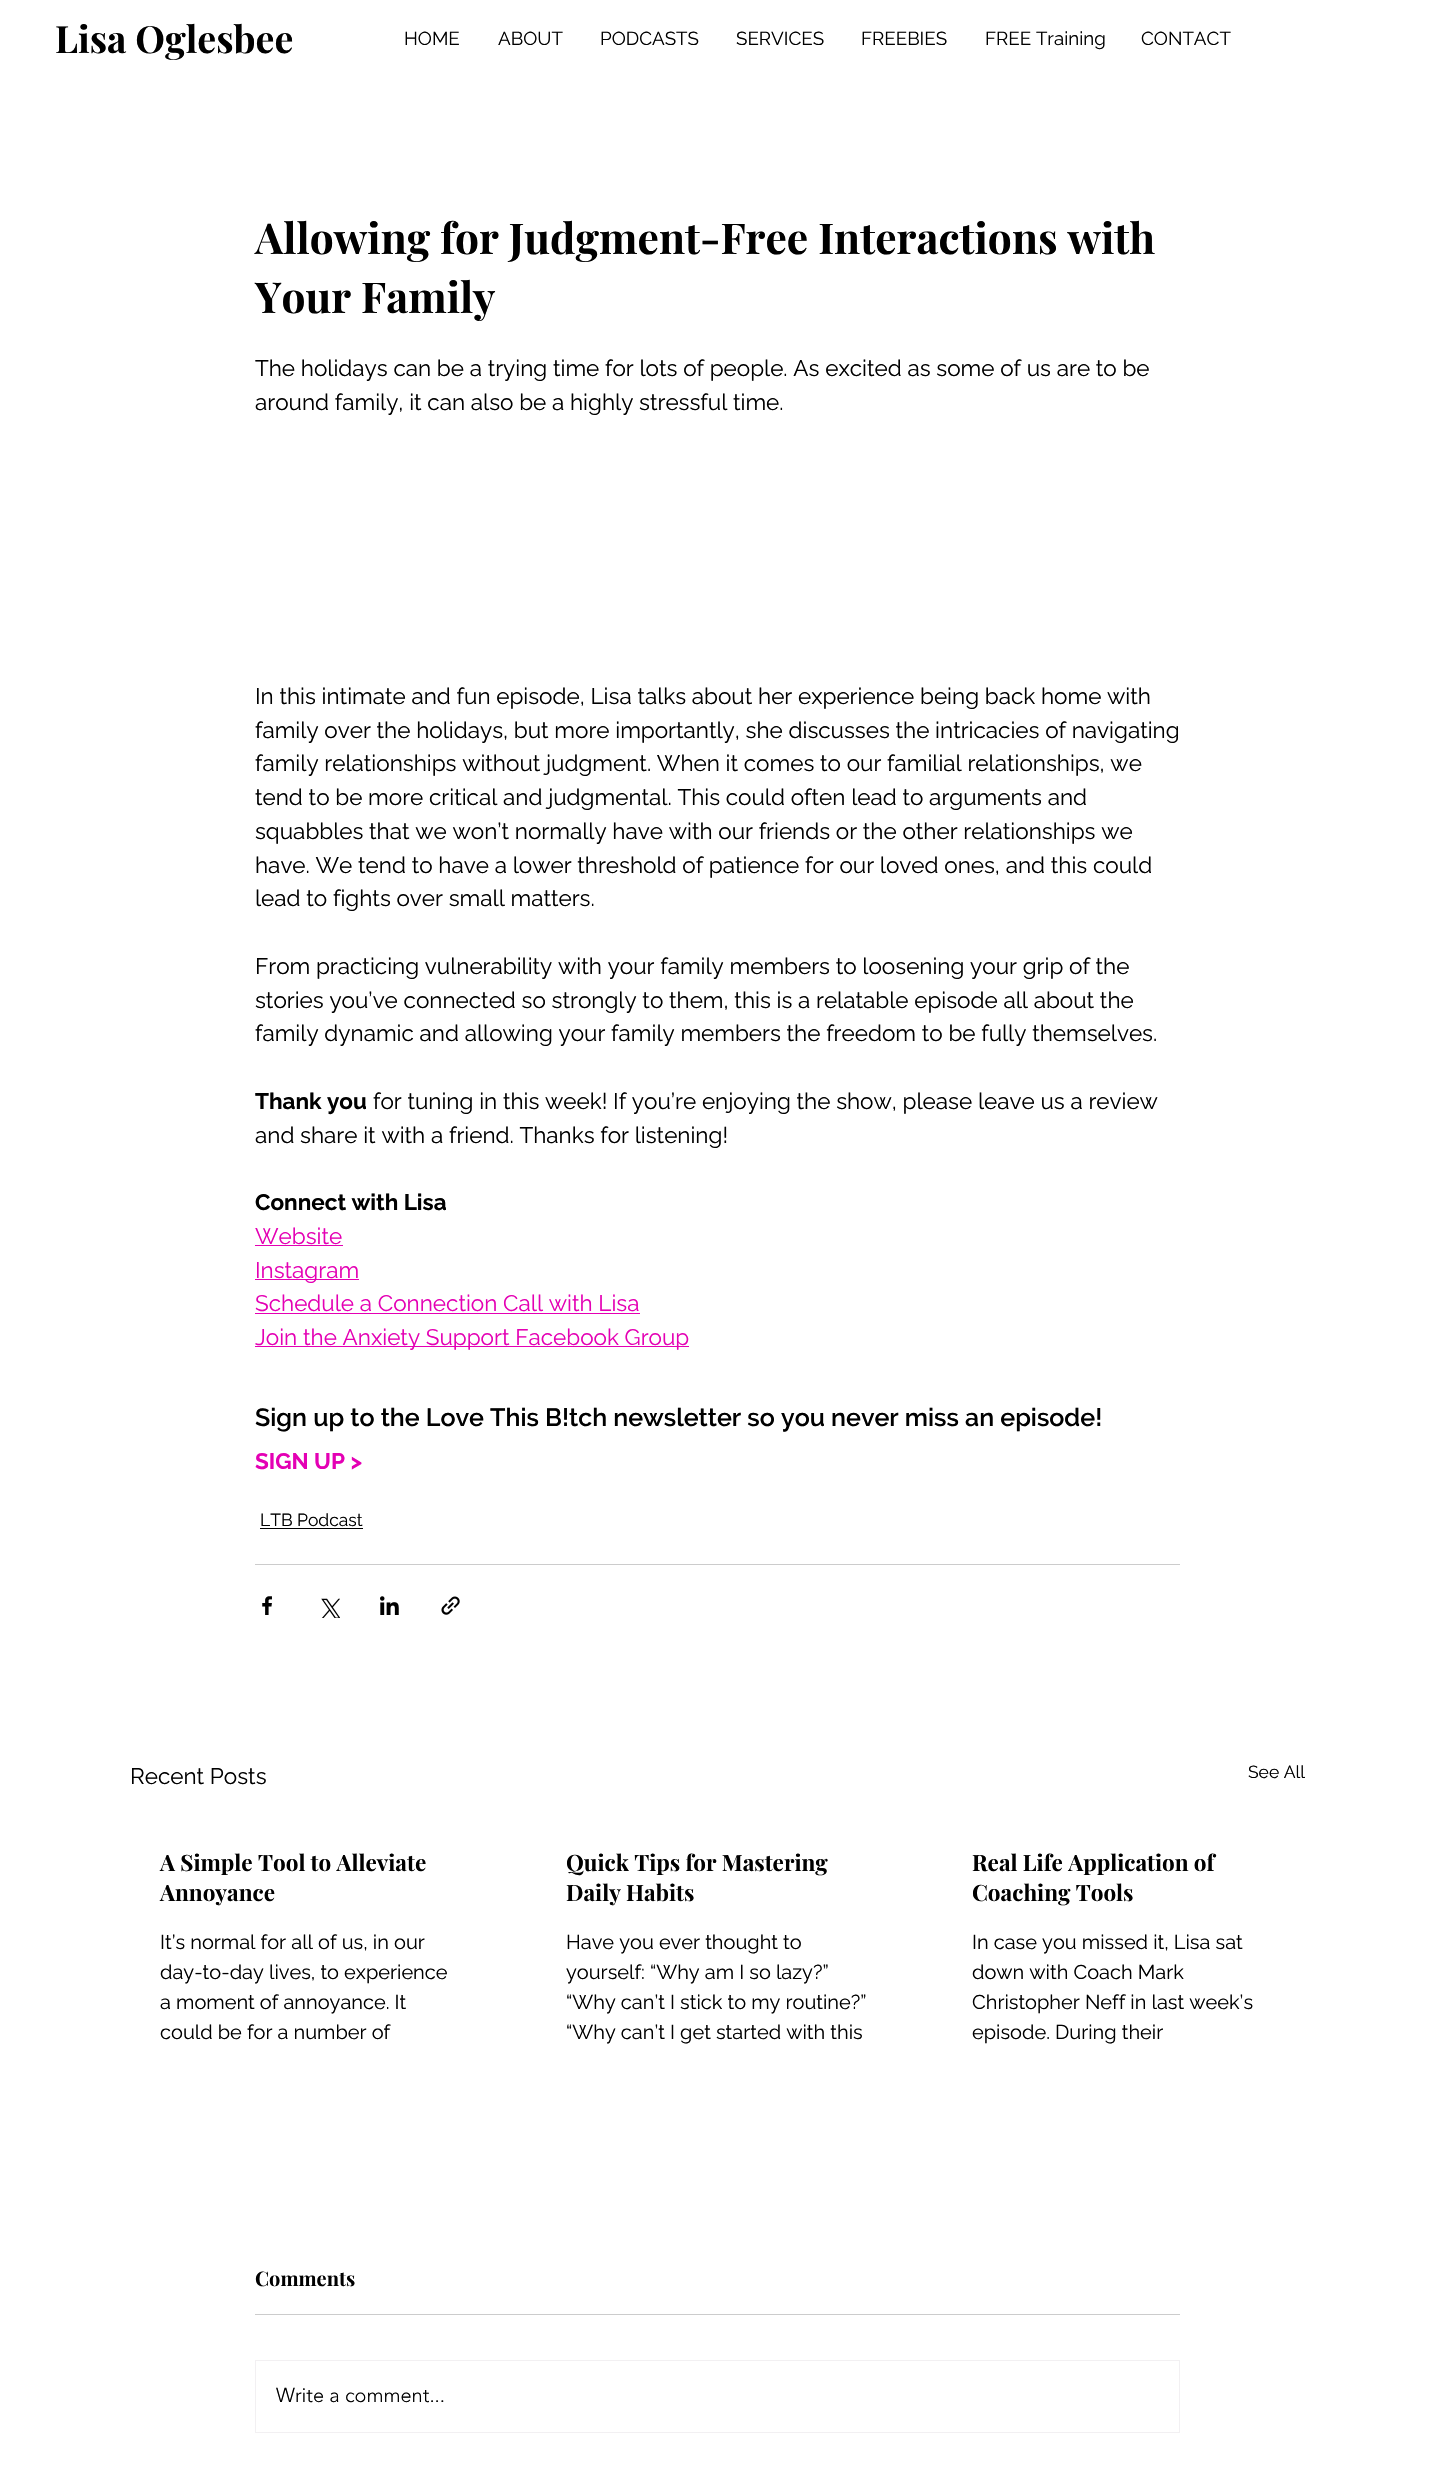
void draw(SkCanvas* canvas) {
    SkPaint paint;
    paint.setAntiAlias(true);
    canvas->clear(0xFFFFFFFF);
    SkFont font1(fontMgr->matchFamilyStyle("Playfair Display", SkFontStyle::Bold()), 37.5f);
    font1.setSubpixel(true);
    paint.setColor(0xFF000000);
    canvas->drawString("Lisa Oglesbee", 55, 53, font1, paint);
    SkFont font2(fontMgr->matchFamilyStyle("Raleway", SkFontStyle::Normal()), 18.75f);
    font2.setSubpixel(true);
    canvas->drawString("HOME", 404, 45, font2, paint);
    canvas->drawString("ABOUT", 498, 45, font2, paint);
    canvas->drawString("PODCASTS", 600, 45, font2, paint);
    canvas->drawString("SERVICES", 736, 45, font2, paint);
    canvas->drawString("FREEBIES", 861, 45, font2, paint);
    canvas->drawString("FREE Training", 985, 45, font2, paint);
    canvas->drawString("CONTACT", 1141, 45, font2, paint);
    SkFont font3(fontMgr->matchFamilyStyle("Playfair Display", SkFontStyle::Bold()), 42.5f);
    font3.setSubpixel(true);
    canvas->drawString("Allowing for Judgment-Free Interactions with", 255, 254, font3, paint);
    canvas->drawString("Your Family", 255, 313, font3, paint);
    SkFont font4(fontMgr->matchFamilyStyle("Raleway", SkFontStyle::Normal()), 22.5f);
    font4.setSubpixel(true);
    canvas->drawString("The holidays can be a trying time for lots of people. As excited as some of us are to be", 255, 376, font4, paint);
    canvas->drawString("around family, it can also be a highly stressful time.", 255, 410, font4, paint);
    canvas->drawString("In this intimate and fun episode, Lisa talks about her experience being back home with", 255, 704, font4, paint);
    canvas->drawString("family over the holidays, but more importantly, she discusses the intricacies of navigating", 255, 738, font4, paint);
    canvas->drawString("family relationships without judgment. When it comes to our familial relationships, we", 255, 771, font4, paint);
    canvas->drawString("tend to be more critical and judgmental. This could often lead to arguments and", 255, 805, font4, paint);
    canvas->drawString("squabbles that we won’t normally have with our friends or the other relationships we", 255, 839, font4, paint);
    canvas->drawString("have. We tend to have a lower threshold of patience for our loved ones, and this could", 255, 873, font4, paint);
    canvas->drawString("lead to fights over small matters.", 255, 906, font4, paint);
    canvas->drawString("From practicing vulnerability with your family members to loosening your grip of the", 255, 974, font4, paint);
    canvas->drawString("stories you’ve connected so strongly to them, this is a relatable episode all about the", 255, 1008, font4, paint);
    canvas->drawString("family dynamic and allowing your family members the freedom to be fully themselves.", 255, 1041, font4, paint);
    SkFont font5(fontMgr->matchFamilyStyle("Raleway", SkFontStyle::Bold()), 22.5f);
    font5.setSubpixel(true);
    canvas->drawString("Thank you", 255, 1109, font5, paint);
    canvas->drawString("for tuning in this week! If you’re enjoying the show, please leave us a review", 373, 1109, font4, paint);
    canvas->drawString("and share it with a friend. Thanks for listening!", 255, 1143, font4, paint);
    canvas->drawString("Connect with Lisa", 255, 1210, font5, paint);
    paint.setColor(0xFFE400B4);
    canvas->drawString("Website", 255, 1244, font4, paint);
    canvas->drawRect(SkRect::MakeXYWH(255, 1245, 88, 1), paint);
    canvas->drawRect(SkRect::MakeXYWH(255, 1279, 104, 1), paint);
    canvas->drawString("Instagram", 255, 1278, font4, paint);
    canvas->drawString("Schedule a Connection Call with Lisa", 255, 1311, font4, paint);
    canvas->drawRect(SkRect::MakeXYWH(255, 1313, 385, 1), paint);
    canvas->drawRect(SkRect::MakeXYWH(255, 1346, 434, 1), paint);
    canvas->drawString("Join the Anxiety Support Facebook Group", 255, 1345, font4, paint);
    SkFont font6(fontMgr->matchFamilyStyle("Raleway", SkFontStyle(600, SkFontStyle::kNormal_Width, SkFontStyle::kUpright_Slant)), 25);
    font6.setSubpixel(true);
    paint.setColor(0xFF000000);
    canvas->drawString("Sign up to the Love This B!tch newsletter so you never miss an episode!", 255, 1426, font6, paint);
    paint.setColor(0xFFE400B4);
    canvas->drawString("SIGN UP >", 255, 1469, font5, paint);
    SkFont font7(fontMgr->matchFamilyStyle("Raleway", SkFontStyle::Normal()), 17.5f);
    font7.setSubpixel(true);
    paint.setColor(0xFF000000);
    canvas->drawString("LTB Podcast", 260, 1526, font7, paint);
    canvas->drawRect(SkRect::MakeXYWH(260, 1528, 103, 1), paint);
    paint.setColor(0xFFCCCCCC);
    canvas->drawRect(SkRect::MakeXYWH(255, 1564, 925, 1), paint);
    canvas->drawImageRect(SkImages::DeferredFromEncodedData(SkData::MakeFromFileName("img1.png")), SkRect::MakeXYWH(262, 1596, 10, 19), SkSamplingOptions());
    canvas->drawImageRect(SkImages::DeferredFromEncodedData(SkData::MakeFromFileName("img2.png")), SkRect::MakeXYWH(321, 1598, 19, 20), SkSamplingOptions());
    canvas->drawImageRect(SkImages::DeferredFromEncodedData(SkData::MakeFromFileName("img3.png")), SkRect::MakeXYWH(380, 1596, 19, 19), SkSamplingOptions());
    canvas->drawImageRect(SkImages::DeferredFromEncodedData(SkData::MakeFromFileName("img4.png")), SkRect::MakeXYWH(441, 1596, 19, 19), SkSamplingOptions());
    paint.setColor(0xFF000000);
    canvas->drawString("Recent Posts", 130, 1784, font4, paint);
    canvas->drawString("See All", 1248, 1778, font7, paint);
    SkFont font8(fontMgr->matchFamilyStyle("Playfair Display", SkFontStyle::Bold()), 22.5f);
    font8.setSubpixel(true);
    canvas->drawString("A Simple Tool to Alleviate", 160, 1871, font8, paint);
    canvas->drawString("Annoyance", 160, 1901, font8, paint);
    SkFont font9(fontMgr->matchFamilyStyle("Raleway", SkFontStyle::Normal()), 20);
    font9.setSubpixel(true);
    canvas->drawString("It’s normal for all of us, in our", 160, 1949, font9, paint);
    canvas->drawString("day-to-day lives, to experience", 160, 1979, font9, paint);
    canvas->drawString("a moment of annoyance. It", 160, 2009, font9, paint);
    canvas->drawString("could be for a number of", 160, 2039, font9, paint);
    canvas->drawString("Quick Tips for Mastering", 566, 1871, font8, paint);
    canvas->drawString("Daily Habits", 566, 1901, font8, paint);
    canvas->drawString("Have you ever thought to", 566, 1949, font9, paint);
    canvas->drawString("yourself: “Why am I so lazy?”", 566, 1979, font9, paint);
    canvas->drawString("“Why can’t I stick to my routine?”", 566, 2009, font9, paint);
    canvas->drawString("“Why can’t I get started with this", 566, 2039, font9, paint);
    canvas->drawString("Real Life Application of", 972, 1871, font8, paint);
    canvas->drawString("Coaching Tools", 972, 1901, font8, paint);
    canvas->drawString("In case you missed it, Lisa sat", 972, 1949, font9, paint);
    canvas->drawString("down with Coach Mark", 972, 1979, font9, paint);
    canvas->drawString("Christopher Neff in last week’s", 972, 2009, font9, paint);
    canvas->drawString("episode. During their", 972, 2039, font9, paint);
    SkFont font10(fontMgr->matchFamilyStyle("Playfair Display", SkFontStyle::Bold()), 20);
    font10.setSubpixel(true);
    canvas->drawString("Comments", 255, 2286, font10, paint);
    paint.setColor(0xFFCCCCCC);
    canvas->drawRect(SkRect::MakeXYWH(255, 2314, 925, 1), paint);
    paint.setStyle(SkPaint::kStroke_Style);
    paint.setStrokeWidth(1);
    paint.setColor(0xFFF2F0F2);
    canvas->drawRect(SkRect::MakeXYWH(255.5f, 2360.5f, 924, 72), paint);
    SkFont font11(fontMgr->matchFamilyStyle("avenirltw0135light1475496", SkFontStyle(300, SkFontStyle::kNormal_Width, SkFontStyle::kUpright_Slant)), 20);
    font11.setSubpixel(true);
    paint.setStyle(SkPaint::kFill_Style);
    paint.setColor(0xFF000000);
    canvas->drawString("Write a comment...", 276, 2402, font11, paint);
}
